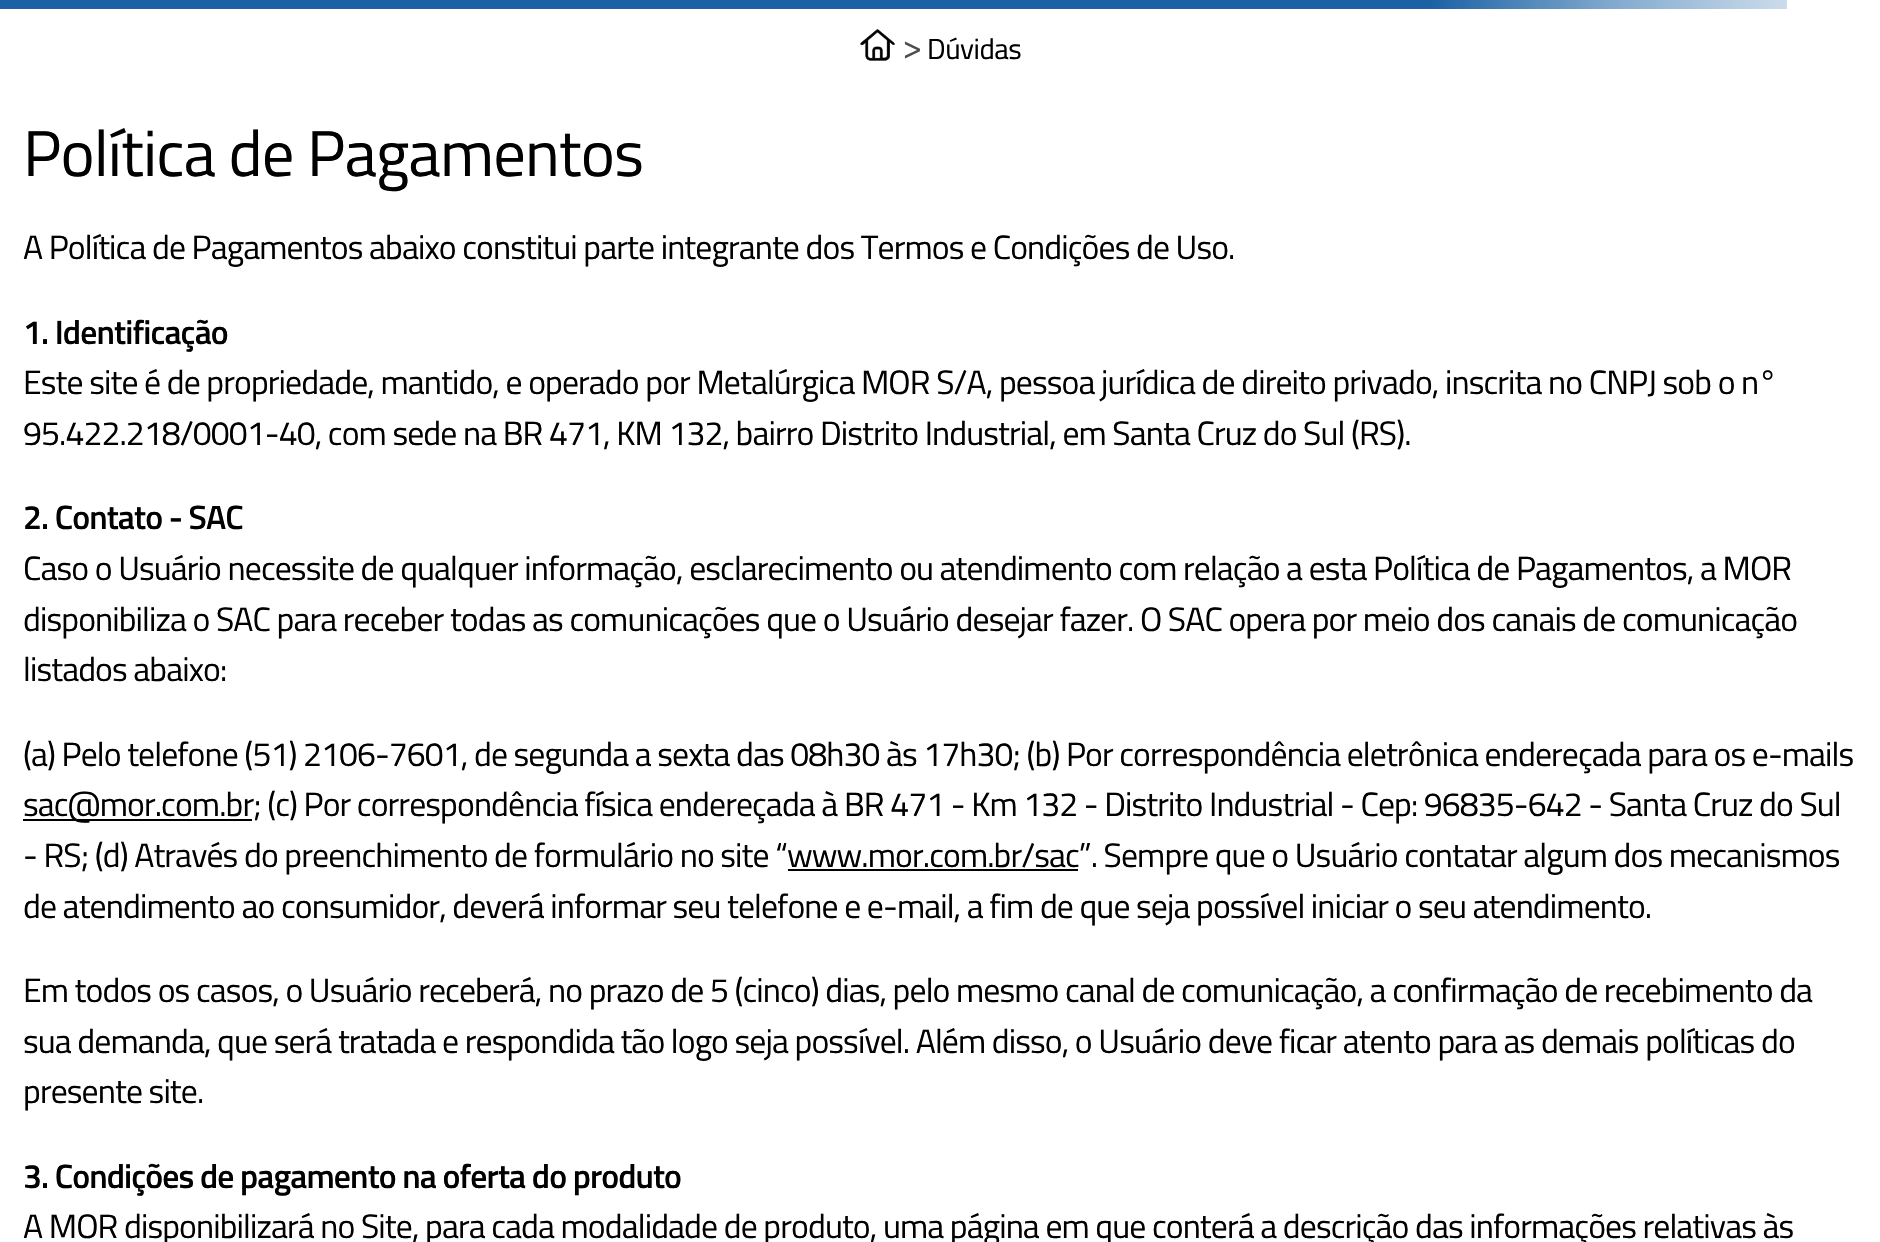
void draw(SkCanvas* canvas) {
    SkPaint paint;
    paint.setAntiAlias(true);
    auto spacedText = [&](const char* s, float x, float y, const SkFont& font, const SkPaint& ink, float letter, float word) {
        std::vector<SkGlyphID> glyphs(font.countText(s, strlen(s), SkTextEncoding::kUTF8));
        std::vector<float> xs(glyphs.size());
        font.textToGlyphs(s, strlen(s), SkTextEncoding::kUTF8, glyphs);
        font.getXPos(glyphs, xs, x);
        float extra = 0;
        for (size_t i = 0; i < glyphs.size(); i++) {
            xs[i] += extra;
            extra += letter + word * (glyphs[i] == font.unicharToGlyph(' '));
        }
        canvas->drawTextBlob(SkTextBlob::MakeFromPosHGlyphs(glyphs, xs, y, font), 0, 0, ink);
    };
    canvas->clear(0xFFFFFFFF);
    {
        const SkColor colors[] = {0xFF1A62A4, 0xFF80A8CD, 0xFFCCDCEB};
        const float stops[] = {0.8f, 0.9f, 1};
        const SkPoint ends[] = {{0, 4.5f}, {1787, 4.5f}};
        paint.setShader(SkGradientShader::MakeLinear(ends, colors, stops, 3, SkTileMode::kClamp));
        paint.setAlpha(255);
    }
    canvas->drawRect(SkRect::MakeXYWH(0, 0, 1787, 9), paint);
    canvas->drawImageRect(SkImages::DeferredFromEncodedData(SkData::MakeFromFileName("img1.png")), SkRect::MakeXYWH(860, 29, 35, 32), SkSamplingOptions());
    SkFont font1(fontMgr->matchFamilyStyle("Titillium Web", SkFontStyle::Normal()), 36);
    font1.setSubpixel(true);
    paint.setShader(nullptr);
    paint.setColor(0xFF4E4E4E);
    spacedText(">", 902, 59, font1, paint, -8, 0);
    SkFont font2(fontMgr->matchFamilyStyle("Titillium Web", SkFontStyle::Normal()), 29);
    font2.setSubpixel(true);
    paint.setColor(0xFF000000);
    spacedText("Dúvidas", 927, 59, font2, paint, -0.5f, 0);
    SkFont font3(fontMgr->matchFamilyStyle("Titillium Web", SkFontStyle::Normal()), 64.75f);
    font3.setSubpixel(true);
    spacedText("Política de Pagamentos", 23, 176, font3, paint, -0.9f, 0);
    SkFont font4(fontMgr->matchFamilyStyle("Titillium Web", SkFontStyle::Normal()), 33.75f);
    font4.setSubpixel(true);
    spacedText("A Política de Pagamentos abaixo constitui parte integrante dos Termos e Condições de Uso.", 23, 259, font4, paint, -0.9f, 0);
    SkFont font5(fontMgr->matchFamilyStyle("Titillium Web", SkFontStyle(600, SkFontStyle::kNormal_Width, SkFontStyle::kUpright_Slant)), 33.75f);
    font5.setSubpixel(true);
    spacedText("1. Identificação", 23, 344, font5, paint, -0.9f, 0);
    spacedText("Este site é de propriedade, mantido, e operado por Metalúrgica MOR S/A, pessoa jurídica de direito privado, inscrita no CNPJ sob o n°", 23, 394, font4, paint, -0.9f, 0);
    spacedText("95.422.218/0001-40, com sede na BR 471, KM 132, bairro Distrito Industrial, em Santa Cruz do Sul (RS).", 23, 445, font4, paint, -0.9f, 0);
    spacedText("2. Contato - SAC", 23, 529, font5, paint, -0.9f, 0);
    spacedText("Caso o Usuário necessite de qualquer informação, esclarecimento ou atendimento com relação a esta Política de Pagamentos, a MOR", 23, 580, font4, paint, -0.9f, 0);
    spacedText("disponibiliza o SAC para receber todas as comunicações que o Usuário desejar fazer. O SAC opera por meio dos canais de comunicação", 23, 631, font4, paint, -0.9f, 0);
    spacedText("listados abaixo:", 23, 681, font4, paint, -0.9f, 0);
    spacedText("(a) Pelo telefone (51) 2106-7601, de segunda a sexta das 08h30 às 17h30; (b) Por correspondência eletrônica endereçada para os e-mails", 23, 766, font4, paint, -0.9f, 0);
    canvas->drawRect(SkRect::MakeXYWH(23, 819, 229, 2), paint);
    spacedText("sac@mor.com.br; (c) Por correspondência física endereçada à BR 471 - Km 132 - Distrito Industrial - Cep: 96835-642 - Santa Cruz do Sul", 23, 816, font4, paint, -0.9f, 0);
    spacedText("- RS; (d) Através do preenchimento de formulário no site “www.mor.com.br/sac”. Sempre que o Usuário contatar algum dos mecanismos", 23, 867, font4, paint, -0.9f, 0);
    canvas->drawRect(SkRect::MakeXYWH(788, 869, 290, 2), paint);
    spacedText("de atendimento ao consumidor, deverá informar seu telefone e e-mail, a fim de que seja possível iniciar o seu atendimento.", 23, 918, font4, paint, -0.9f, 0);
    spacedText("Em todos os casos, o Usuário receberá, no prazo de 5 (cinco) dias, pelo mesmo canal de comunicação, a confirmação de recebimento da", 23, 1002, font4, paint, -0.9f, 0);
    spacedText("sua demanda, que será tratada e respondida tão logo seja possível. Além disso, o Usuário deve ficar atento para as demais políticas do", 23, 1053, font4, paint, -0.9f, 0);
    spacedText("presente site.", 23, 1103, font4, paint, -0.9f, 0);
    spacedText("3. Condições de pagamento na oferta do produto", 23, 1188, font5, paint, -0.9f, 0);
    spacedText("A MOR disponibilizará no Site, para cada modalidade de produto, uma página em que conterá a descrição das informações relativas às", 23, 1238, font4, paint, -0.9f, 0);
}
